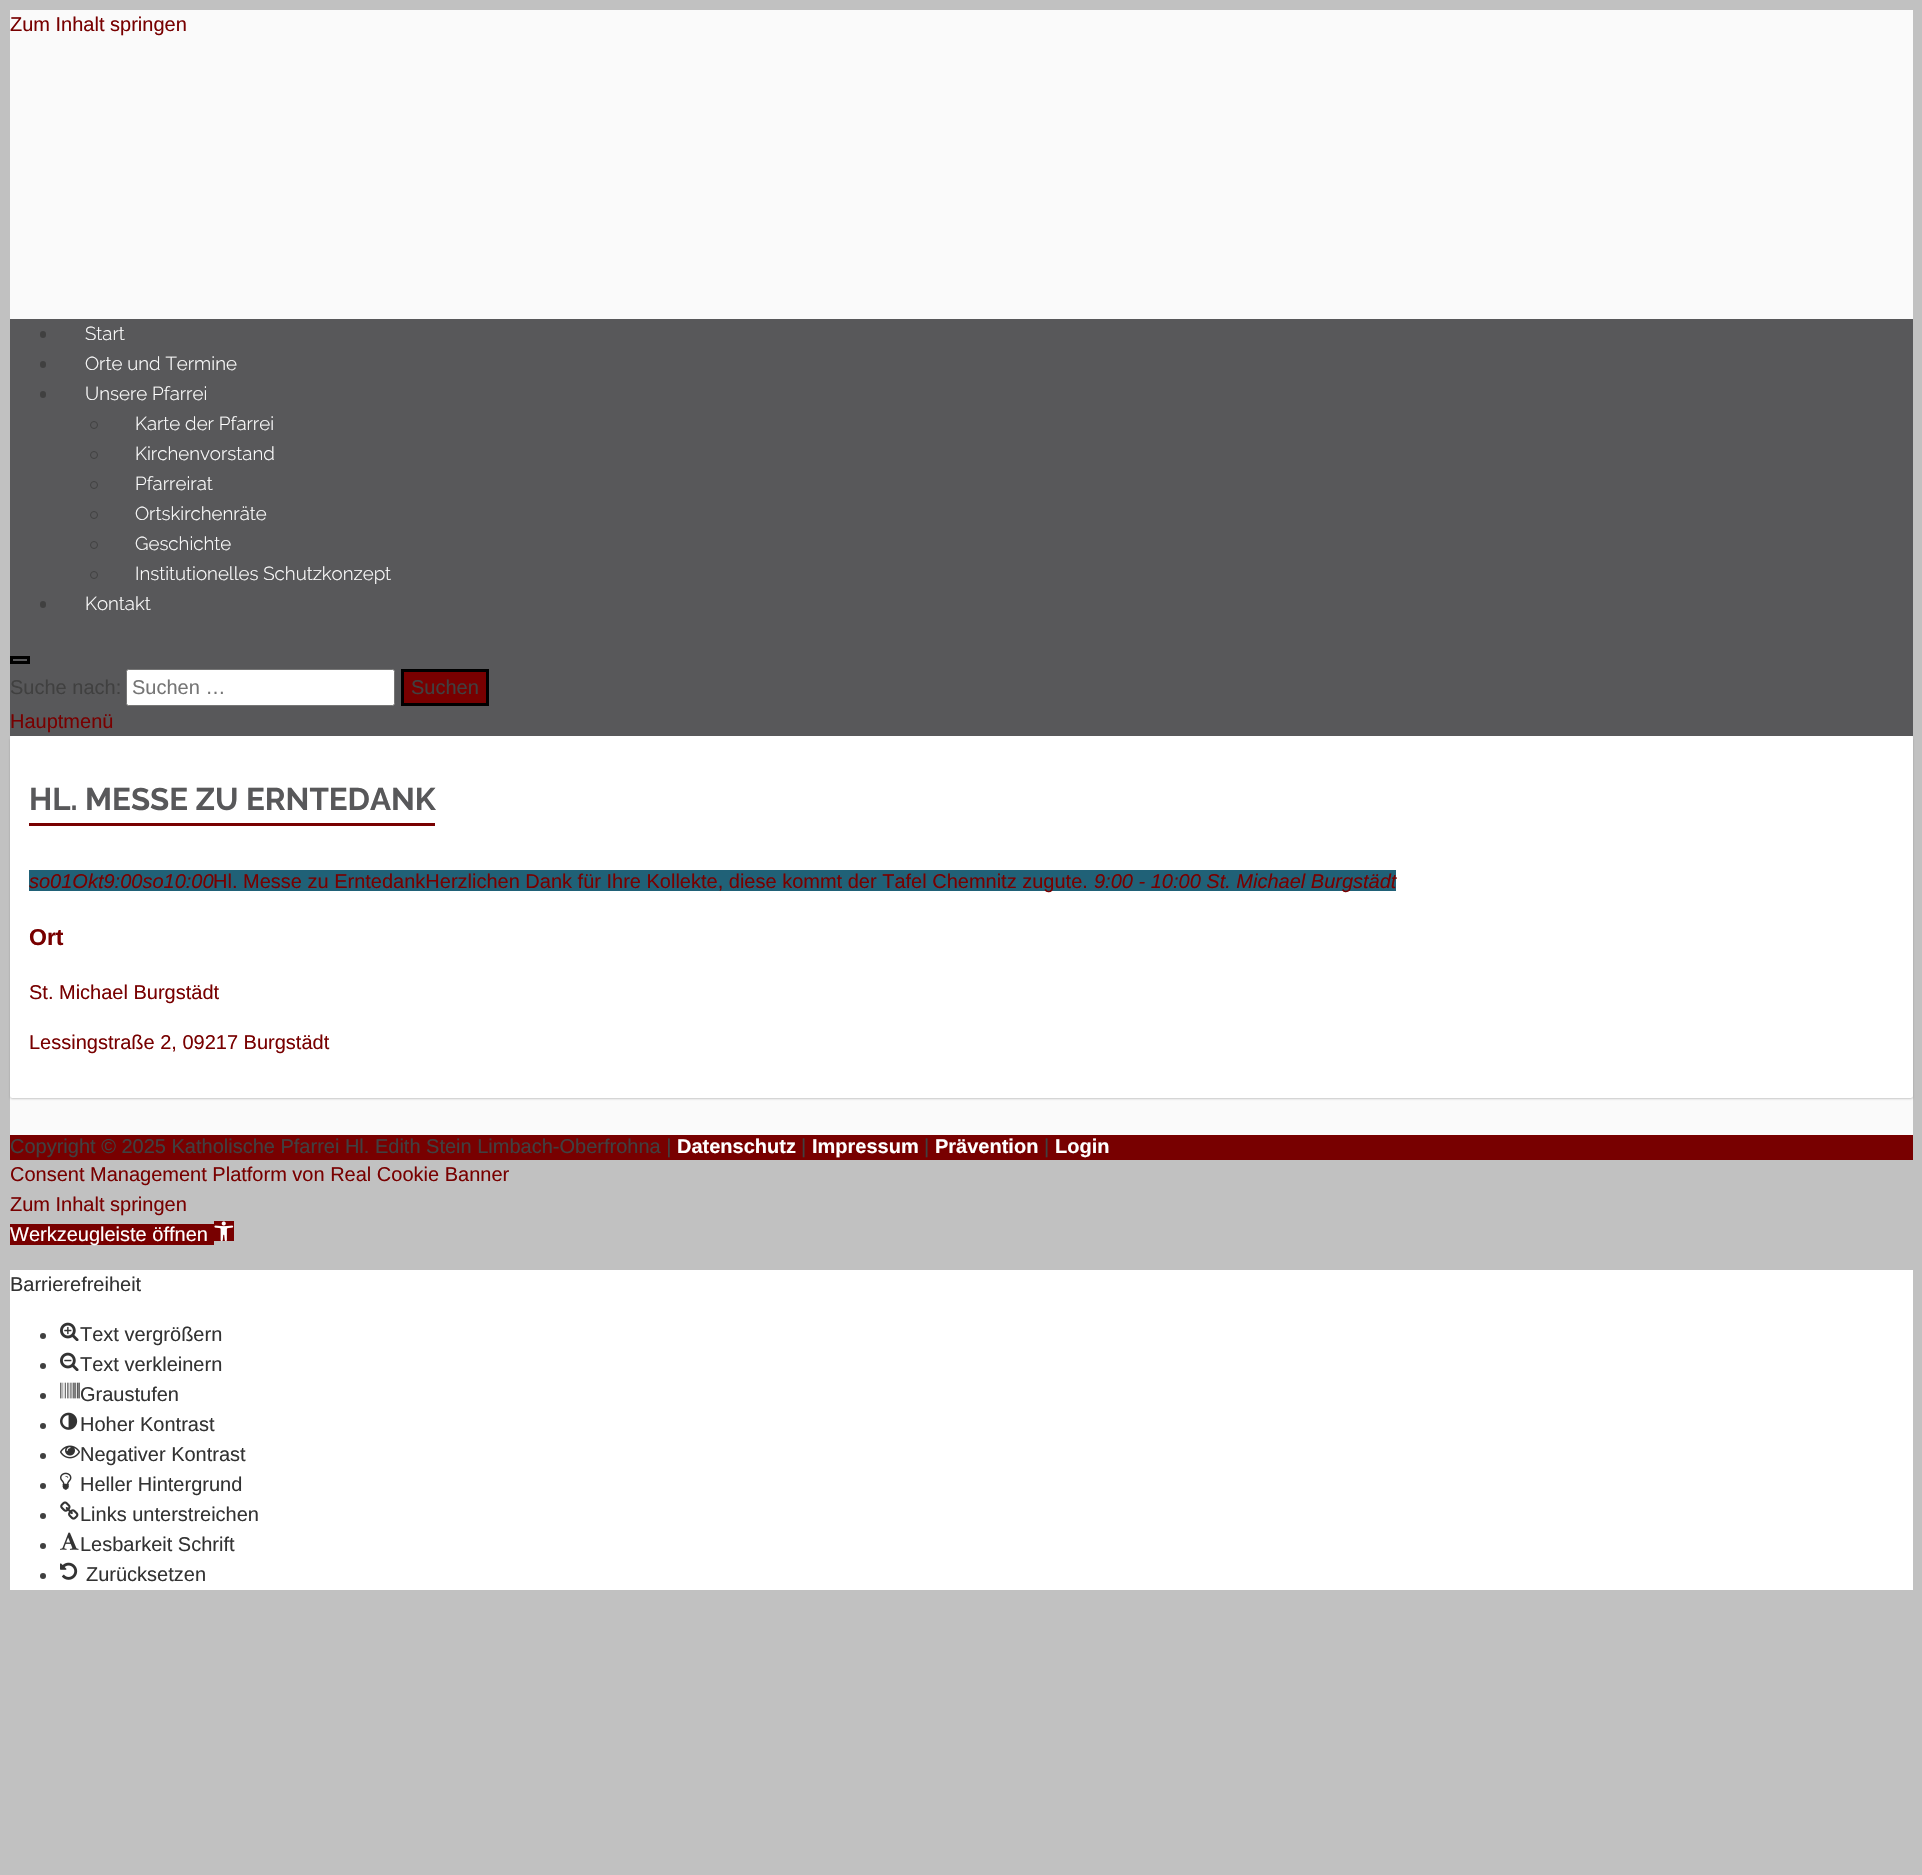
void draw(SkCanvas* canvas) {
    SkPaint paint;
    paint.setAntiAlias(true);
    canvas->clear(0xFFC1C1C1);
    paint.setColor(0xFFFAFAFA);
    canvas->drawRect(SkRect::MakeXYWH(10, 10, 1903, 1125), paint);
    SkFont font1(fontMgr->matchFamilyStyle("Liberation Sans", SkFontStyle::Normal()), 20);
    font1.setSubpixel(true);
    paint.setColor(0xFF780000);
    canvas->drawString("Zum Inhalt springen", 10, 31, font1, paint);
    paint.setColor(0xFF58585A);
    canvas->drawRect(SkRect::MakeXYWH(10, 319, 1903, 417), paint);
    paint.setColor(0xFF404040);
    canvas->drawRoundRect(SkRect::MakeXYWH(40, 331, 6, 7), 3, 3, paint);
    SkFont font2(fontMgr->matchFamilyStyle("Raleway", SkFontStyle(300, SkFontStyle::kNormal_Width, SkFontStyle::kUpright_Slant)), 18.75f);
    font2.setSubpixel(true);
    paint.setColor(0xFFFFFFFF);
    canvas->drawString("Start", 85, 340, font2, paint);
    paint.setColor(0xFF404040);
    canvas->drawRoundRect(SkRect::MakeXYWH(40, 361, 6, 7), 3, 3, paint);
    paint.setColor(0xFFFFFFFF);
    canvas->drawString("Orte und Termine", 85, 370, font2, paint);
    paint.setColor(0xFF404040);
    canvas->drawRoundRect(SkRect::MakeXYWH(40, 391, 6, 7), 3, 3, paint);
    paint.setColor(0xFFFFFFFF);
    canvas->drawString("Unsere Pfarrei", 85, 400, font2, paint);
    paint.setStyle(SkPaint::kStroke_Style);
    paint.setStrokeWidth(1);
    paint.setColor(0xFF404040);
    canvas->drawCircle(94, 425, 3.5f, paint);
    paint.setStyle(SkPaint::kFill_Style);
    paint.setColor(0xFFFFFFFF);
    canvas->drawString("Karte der Pfarrei", 135, 430, font2, paint);
    paint.setStyle(SkPaint::kStroke_Style);
    paint.setColor(0xFF404040);
    canvas->drawCircle(94, 455, 3.5f, paint);
    paint.setStyle(SkPaint::kFill_Style);
    paint.setColor(0xFFFFFFFF);
    canvas->drawString("Kirchenvorstand", 135, 460, font2, paint);
    paint.setStyle(SkPaint::kStroke_Style);
    paint.setColor(0xFF404040);
    canvas->drawCircle(94, 485, 3.5f, paint);
    paint.setStyle(SkPaint::kFill_Style);
    paint.setColor(0xFFFFFFFF);
    canvas->drawString("Pfarreirat", 135, 490, font2, paint);
    paint.setStyle(SkPaint::kStroke_Style);
    paint.setColor(0xFF404040);
    canvas->drawCircle(94, 515, 3.5f, paint);
    paint.setStyle(SkPaint::kFill_Style);
    paint.setColor(0xFFFFFFFF);
    canvas->drawString("Ortskirchenräte", 135, 520, font2, paint);
    paint.setStyle(SkPaint::kStroke_Style);
    paint.setColor(0xFF404040);
    canvas->drawCircle(94, 545, 3.5f, paint);
    paint.setStyle(SkPaint::kFill_Style);
    paint.setColor(0xFFFFFFFF);
    canvas->drawString("Geschichte", 135, 550, font2, paint);
    paint.setStyle(SkPaint::kStroke_Style);
    paint.setColor(0xFF404040);
    canvas->drawCircle(94, 575, 3.5f, paint);
    paint.setStyle(SkPaint::kFill_Style);
    paint.setColor(0xFFFFFFFF);
    canvas->drawString("Institutionelles Schutzkonzept", 135, 580, font2, paint);
    paint.setColor(0xFF404040);
    canvas->drawRoundRect(SkRect::MakeXYWH(40, 601, 6, 7), 3, 3, paint);
    paint.setColor(0xFFFFFFFF);
    canvas->drawString("Kontakt", 85, 610, font2, paint);
    paint.setStyle(SkPaint::kStroke_Style);
    paint.setStrokeWidth(3);
    paint.setColor(0xFF000000);
    canvas->drawRect(SkRect::MakeXYWH(11.5f, 657.5f, 17, 5), paint);
    paint.setStyle(SkPaint::kFill_Style);
    paint.setColor(0xFF404040);
    canvas->drawString("Suche nach:", 10, 694, font1, paint);
    paint.setColor(0xFFFFFFFF);
    canvas->drawRoundRect(SkRect::MakeXYWH(126.5f, 669.5f, 268, 36), 2, 2, paint);
    paint.setStyle(SkPaint::kStroke_Style);
    paint.setStrokeWidth(1);
    paint.setColor(0xFF767676);
    canvas->drawRoundRect(SkRect::MakeXYWH(126.5f, 669.5f, 268, 36), 2, 2, paint);
    paint.setStyle(SkPaint::kFill_Style);
    paint.setColor(0xFF757575);
    canvas->drawString("Suchen …", 132, 694, font1, paint);
    paint.setColor(0xFF780000);
    canvas->drawRect(SkRect::MakeXYWH(402.5f, 670.5f, 85, 34), paint);
    paint.setStyle(SkPaint::kStroke_Style);
    paint.setStrokeWidth(3);
    paint.setColor(0xFF000000);
    canvas->drawRect(SkRect::MakeXYWH(402.5f, 670.5f, 85, 34), paint);
    paint.setStyle(SkPaint::kFill_Style);
    paint.setColor(0xFF404040);
    canvas->drawString("Suchen", 411, 694, font1, paint);
    paint.setColor(0xFF780000);
    canvas->drawString("Hauptmenü", 10, 728, font1, paint);
    paint.setColor(0x33000000);
    paint.setMaskFilter(SkMaskFilter::MakeBlur(kNormal_SkBlurStyle, 1));
    canvas->drawRoundRect(SkRect::MakeXYWH(10, 738, 1903, 361), 2.5f, 2.5f, paint);
    paint.setMaskFilter(nullptr);
    paint.setColor(0xFFFFFFFF);
    canvas->drawRoundRect(SkRect::MakeXYWH(10, 736, 1903, 362), 2.5f, 2.5f, paint);
    paint.setColor(0xFF780000);
    canvas->drawRect(SkRect::MakeXYWH(29, 823, 406, 3), paint);
    SkFont font3(fontMgr->matchFamilyStyle("Raleway", SkFontStyle::Bold()), 31.25f);
    font3.setSubpixel(true);
    paint.setColor(0xFF58585A);
    canvas->drawString("HL. MESSE ZU ERNTEDANK", 29, 810, font3, paint);
    paint.setColor(0xFF206177);
    canvas->drawRect(SkRect::MakeXYWH(29, 870, 1367, 21), paint);
    SkFont font4(fontMgr->matchFamilyStyle("Liberation Sans", SkFontStyle::Italic()), 20);
    font4.setSubpixel(true);
    paint.setColor(0xFF780000);
    canvas->drawString("so01Okt9:00so10:00", 29, 888, font4, paint);
    canvas->drawString("Hl. Messe zu ErntedankHerzlichen Dank für Ihre Kollekte, diese kommt der Tafel Chemnitz zugute.", 213, 888, font1, paint);
    canvas->drawString("9:00 - 10:00 St. Michael Burgstädt", 1094, 888, font4, paint);
    SkFont font5(fontMgr->matchFamilyStyle("Liberation Sans", SkFontStyle::Bold()), 23);
    font5.setSubpixel(true);
    canvas->drawString("Ort", 29, 945, font5, paint);
    canvas->drawString("St. Michael Burgstädt", 29, 999, font1, paint);
    canvas->drawString("Lessingstraße 2, 09217 Burgstädt", 29, 1049, font1, paint);
    canvas->drawRect(SkRect::MakeXYWH(10, 1135, 1903, 25), paint);
    paint.setColor(0xFF404040);
    canvas->drawString("Copyright © 2025 Katholische Pfarrei Hl. Edith Stein Limbach-Oberfrohna |", 10, 1153, font1, paint);
    SkFont font6(fontMgr->matchFamilyStyle("Liberation Sans", SkFontStyle::Bold()), 20);
    font6.setSubpixel(true);
    paint.setColor(0xFFFFFFFF);
    canvas->drawString("Datenschutz", 677, 1153, font6, paint);
    paint.setColor(0xFF404040);
    canvas->drawString("|", 801, 1153, font1, paint);
    paint.setColor(0xFFFFFFFF);
    canvas->drawString("Impressum", 812, 1153, font6, paint);
    paint.setColor(0xFF404040);
    canvas->drawString("|", 924, 1153, font1, paint);
    paint.setColor(0xFFFFFFFF);
    canvas->drawString("Prävention", 935, 1153, font6, paint);
    paint.setColor(0xFF404040);
    canvas->drawString("|", 1044, 1153, font1, paint);
    paint.setColor(0xFFFFFFFF);
    canvas->drawString("Login", 1055, 1153, font6, paint);
    paint.setColor(0xFF780000);
    canvas->drawString("Consent Management Platform von Real Cookie Banner", 10, 1181, font1, paint);
    canvas->drawString("Zum Inhalt springen", 10, 1211, font1, paint);
    canvas->drawRect(SkRect::MakeXYWH(10, 1224, 204, 21), paint);
    paint.setColor(0xFFFFFFFF);
    canvas->drawString("Werkzeugleiste öffnen", 10, 1241, font1, paint);
    paint.setColor(0xFF780000);
    canvas->drawRect(SkRect::MakeXYWH(214, 1221, 20, 20), paint);
    canvas->drawImageRect(SkImages::DeferredFromEncodedData(SkData::MakeFromFileName("img1.png")), SkRect::MakeXYWH(214, 1221, 20, 20), SkSamplingOptions());
    paint.setColor(0xFFFFFFFF);
    canvas->drawRect(SkRect::MakeXYWH(10, 1270, 1903, 320), paint);
    paint.setColor(0xFF333333);
    canvas->drawString("Barrierefreiheit", 10, 1291, font1, paint);
    paint.setColor(0xFF404040);
    canvas->drawCircle(43, 1336, 3, paint);
    canvas->drawImageRect(SkImages::DeferredFromEncodedData(SkData::MakeFromFileName("img2.png")), SkRect::MakeXYWH(60, 1322, 19, 19), SkSamplingOptions());
    paint.setColor(0xFF333333);
    canvas->drawString("Text vergrößern", 80, 1341, font1, paint);
    paint.setColor(0xFF404040);
    canvas->drawCircle(43, 1366, 3, paint);
    canvas->drawImageRect(SkImages::DeferredFromEncodedData(SkData::MakeFromFileName("img3.png")), SkRect::MakeXYWH(60, 1352, 19, 19), SkSamplingOptions());
    paint.setColor(0xFF333333);
    canvas->drawString("Text verkleinern", 80, 1371, font1, paint);
    paint.setColor(0xFF404040);
    canvas->drawCircle(43, 1396, 3, paint);
    canvas->drawImageRect(SkImages::DeferredFromEncodedData(SkData::MakeFromFileName("img4.png")), SkRect::MakeXYWH(60, 1382, 20, 17), SkSamplingOptions());
    paint.setColor(0xFF333333);
    canvas->drawString("Graustufen", 80, 1401, font1, paint);
    paint.setColor(0xFF404040);
    canvas->drawCircle(43, 1426, 3, paint);
    canvas->drawImageRect(SkImages::DeferredFromEncodedData(SkData::MakeFromFileName("img5.png")), SkRect::MakeXYWH(60, 1412, 18, 18), SkSamplingOptions());
    paint.setColor(0xFF333333);
    canvas->drawString("Hoher Kontrast", 80, 1431, font1, paint);
    paint.setColor(0xFF404040);
    canvas->drawCircle(43, 1456, 3, paint);
    canvas->drawImageRect(SkImages::DeferredFromEncodedData(SkData::MakeFromFileName("img6.png")), SkRect::MakeXYWH(60, 1445, 20, 14), SkSamplingOptions());
    paint.setColor(0xFF333333);
    canvas->drawString("Negativer Kontrast", 80, 1461, font1, paint);
    paint.setColor(0xFF404040);
    canvas->drawCircle(43, 1486, 3, paint);
    canvas->drawImageRect(SkImages::DeferredFromEncodedData(SkData::MakeFromFileName("img7.png")), SkRect::MakeXYWH(60, 1472, 12, 18), SkSamplingOptions());
    paint.setColor(0xFF333333);
    canvas->drawString("Heller Hintergrund", 80, 1491, font1, paint);
    paint.setColor(0xFF404040);
    canvas->drawCircle(43, 1516, 3, paint);
    canvas->drawImageRect(SkImages::DeferredFromEncodedData(SkData::MakeFromFileName("img8.png")), SkRect::MakeXYWH(60, 1501, 19, 19), SkSamplingOptions());
    paint.setColor(0xFF333333);
    canvas->drawString("Links unterstreichen", 80, 1521, font1, paint);
    paint.setColor(0xFF404040);
    canvas->drawCircle(43, 1546, 3, paint);
    canvas->drawImageRect(SkImages::DeferredFromEncodedData(SkData::MakeFromFileName("img9.png")), SkRect::MakeXYWH(60, 1532, 19, 18), SkSamplingOptions());
    paint.setColor(0xFF333333);
    canvas->drawString("Lesbarkeit Schrift", 80, 1551, font1, paint);
    paint.setColor(0xFF404040);
    canvas->drawCircle(43, 1576, 3, paint);
    canvas->drawImageRect(SkImages::DeferredFromEncodedData(SkData::MakeFromFileName("img10.png")), SkRect::MakeXYWH(60, 1562, 18, 18), SkSamplingOptions());
    paint.setColor(0xFF333333);
    canvas->drawString("Zurücksetzen", 86, 1581, font1, paint);
}
